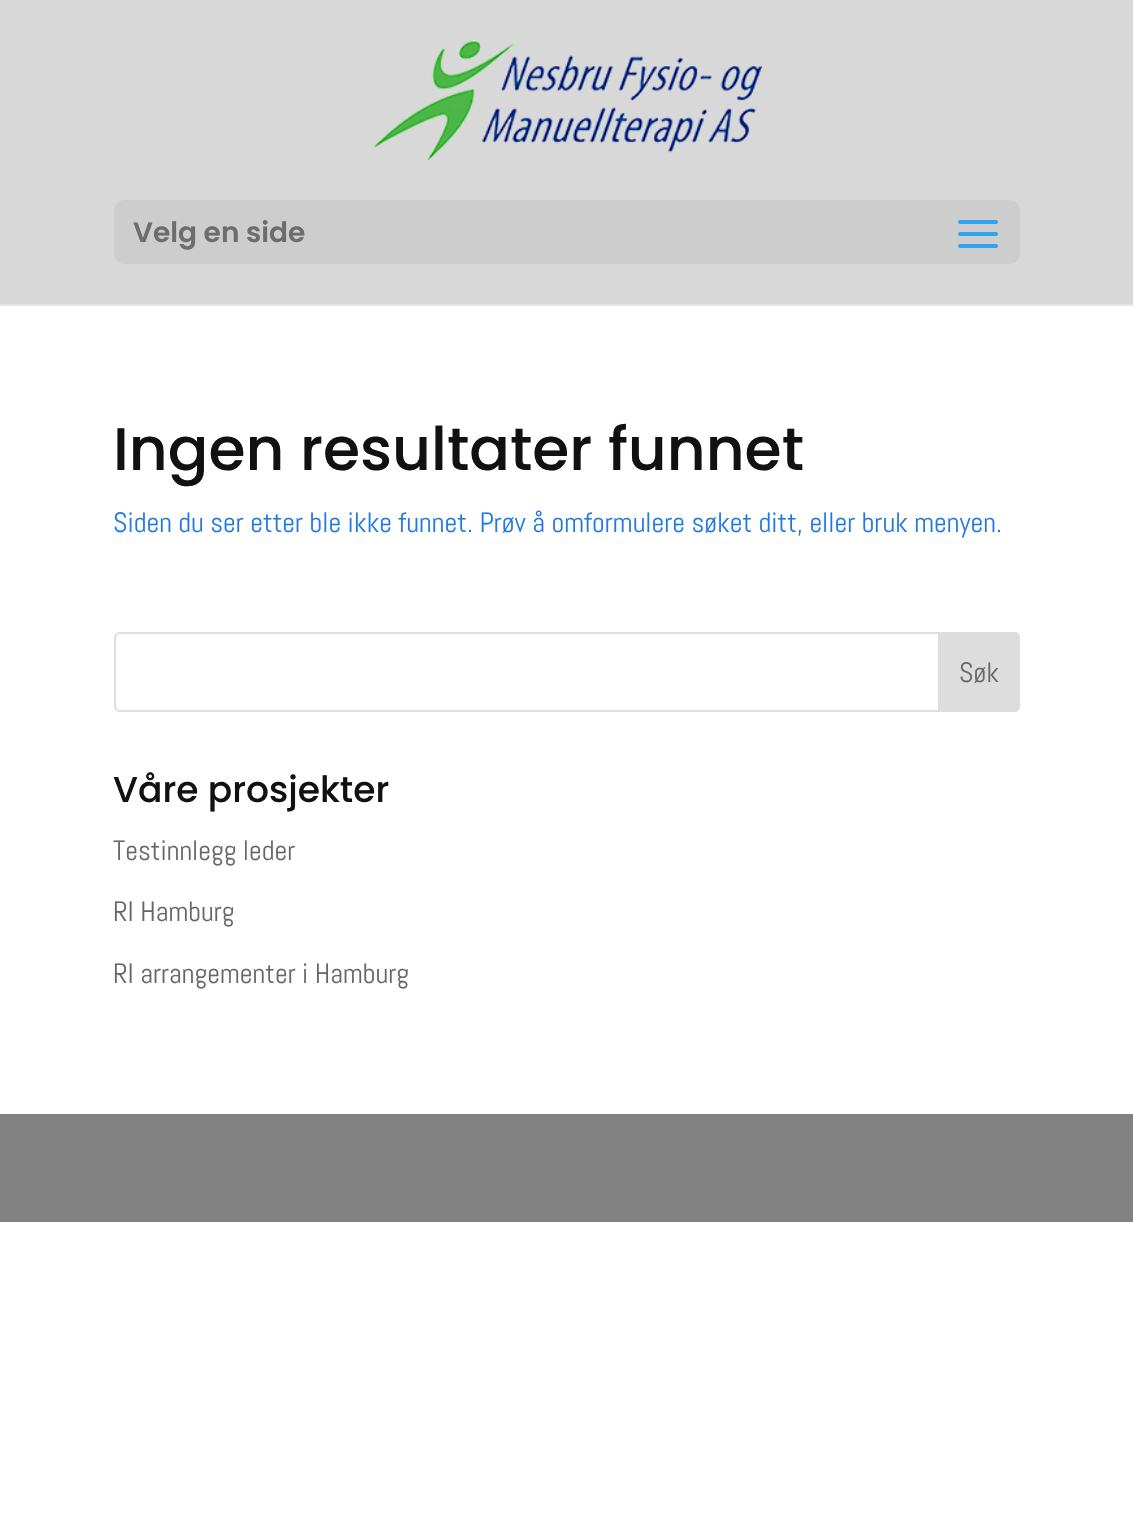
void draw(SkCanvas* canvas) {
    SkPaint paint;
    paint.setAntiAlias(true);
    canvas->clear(0xFFFFFFFF);
    paint.setColor(0xFFE6E6E6);
    canvas->drawRect(SkRect::MakeXYWH(0, 304, 1133, 2), paint);
    paint.setColor(0xFFD8D8D8);
    canvas->drawRect(SkRect::MakeXYWH(0, 0, 1133, 304), paint);
    canvas->drawImageRect(SkImages::DeferredFromEncodedData(SkData::MakeFromFileName("img1.png")), SkRect::MakeXYWH(373, 40, 389, 120), SkSamplingOptions());
    paint.setColor(0xFFCDCDCD);
    canvas->drawRoundRect(SkRect::MakeXYWH(114, 200, 906, 64), 10, 10, paint);
    SkFont font1(fontMgr->matchFamilyStyle("Poppins", SkFontStyle(600, SkFontStyle::kNormal_Width, SkFontStyle::kUpright_Slant)), 28);
    font1.setSubpixel(true);
    paint.setColor(0xFF6D6D6D);
    canvas->drawString("Velg en side", 133, 242, font1, paint);
    canvas->drawImageRect(SkImages::DeferredFromEncodedData(SkData::MakeFromFileName("img2.png")), SkRect::MakeXYWH(958, 220, 40, 28), SkSamplingOptions());
    SkFont font2(fontMgr->matchFamilyStyle("Poppins", SkFontStyle(500, SkFontStyle::kNormal_Width, SkFontStyle::kUpright_Slant)), 60);
    font2.setSubpixel(true);
    paint.setColor(0xFF111111);
    canvas->drawString("Ingen resultater funnet", 113, 470, font2, paint);
    SkFont font3(fontMgr->matchFamilyStyle("Abel", SkFontStyle::Normal()), 28);
    font3.setSubpixel(true);
    paint.setColor(0xFF2078E5);
    canvas->drawString("Siden du ser etter ble ikke funnet. Prøv å omformulere søket ditt, eller bruk menyen.", 113, 532, font3, paint);
    paint.setStyle(SkPaint::kStroke_Style);
    paint.setStrokeWidth(2);
    paint.setColor(0xFFDDDDDD);
    canvas->drawRoundRect(SkRect::MakeXYWH(115, 633, 904, 78), 5, 5, paint);
    paint.setStyle(SkPaint::kFill_Style);
    canvas->drawPath(SkPathBuilder().moveTo(939, 633).lineTo(1014, 633).cubicTo(1017, 633, 1019, 635, 1019, 638).lineTo(1019, 706).cubicTo(1019, 709, 1017, 711, 1014, 711).lineTo(939, 711).close().detach(), paint);
    paint.setStyle(SkPaint::kStroke_Style);
    canvas->drawPath(SkPathBuilder().moveTo(939, 633).lineTo(1014, 633).cubicTo(1017, 633, 1019, 635, 1019, 638).lineTo(1019, 706).cubicTo(1019, 709, 1017, 711, 1014, 711).lineTo(939, 711).close().detach(), paint);
    paint.setStyle(SkPaint::kFill_Style);
    paint.setColor(0xFF666666);
    canvas->drawString("Søk", 959, 682, font3, paint);
    SkFont font4(fontMgr->matchFamilyStyle("Poppins", SkFontStyle(500, SkFontStyle::kNormal_Width, SkFontStyle::kUpright_Slant)), 36);
    font4.setSubpixel(true);
    paint.setColor(0xFF111111);
    canvas->drawString("Våre prosjekter", 113, 802, font4, paint);
    paint.setColor(0xFF666666);
    canvas->drawString("Testinnlegg leder", 113, 860, font3, paint);
    canvas->drawString("RI Hamburg", 113, 921, font3, paint);
    canvas->drawString("RI arrangementer i Hamburg", 113, 983, font3, paint);
    paint.setColor(0xFF828282);
    canvas->drawRect(SkRect::MakeXYWH(0, 1114, 1133, 108), paint);
}
